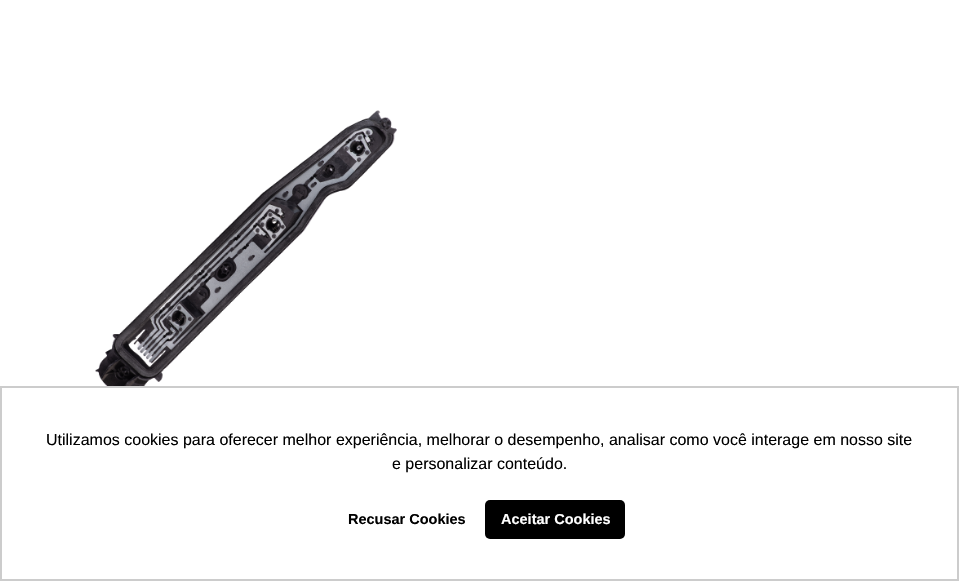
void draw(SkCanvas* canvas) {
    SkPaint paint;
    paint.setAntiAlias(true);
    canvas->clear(0xFFFFFFFF);
    canvas->drawImageRect(SkImages::DeferredFromEncodedData(SkData::MakeFromFileName("img1.png")), SkRect::MakeXYWH(95, 110, 302, 276), SkSamplingOptions());
    paint.setStyle(SkPaint::kStroke_Style);
    paint.setStrokeWidth(2);
    paint.setColor(0xFFCCCCCC);
    canvas->drawRect(SkRect::MakeXYWH(1, 387, 957, 193), paint);
    SkFont font1(fontMgr->matchFamilyStyle("Liberation Sans", SkFontStyle::Normal()), 16);
    font1.setSubpixel(true);
    paint.setStyle(SkPaint::kFill_Style);
    paint.setColor(0xFF000000);
    canvas->drawString("Utilizamos cookies para oferecer melhor experiência, melhorar o desempenho, analisar como você interage em nosso site", 46, 445, font1, paint);
    canvas->drawString("e personalizar conteúdo.", 392, 469, font1, paint);
    SkFont font2(fontMgr->matchFamilyStyle("Liberation Sans", SkFontStyle::Bold()), 14.5f);
    font2.setSubpixel(true);
    canvas->drawString("Recusar Cookies", 348, 524, font2, paint);
    canvas->drawRoundRect(SkRect::MakeXYWH(485, 500, 140, 39), 5, 5, paint);
    paint.setColor(0xFFFFFFFF);
    canvas->drawString("Aceitar Cookies", 501, 524, font2, paint);
}
